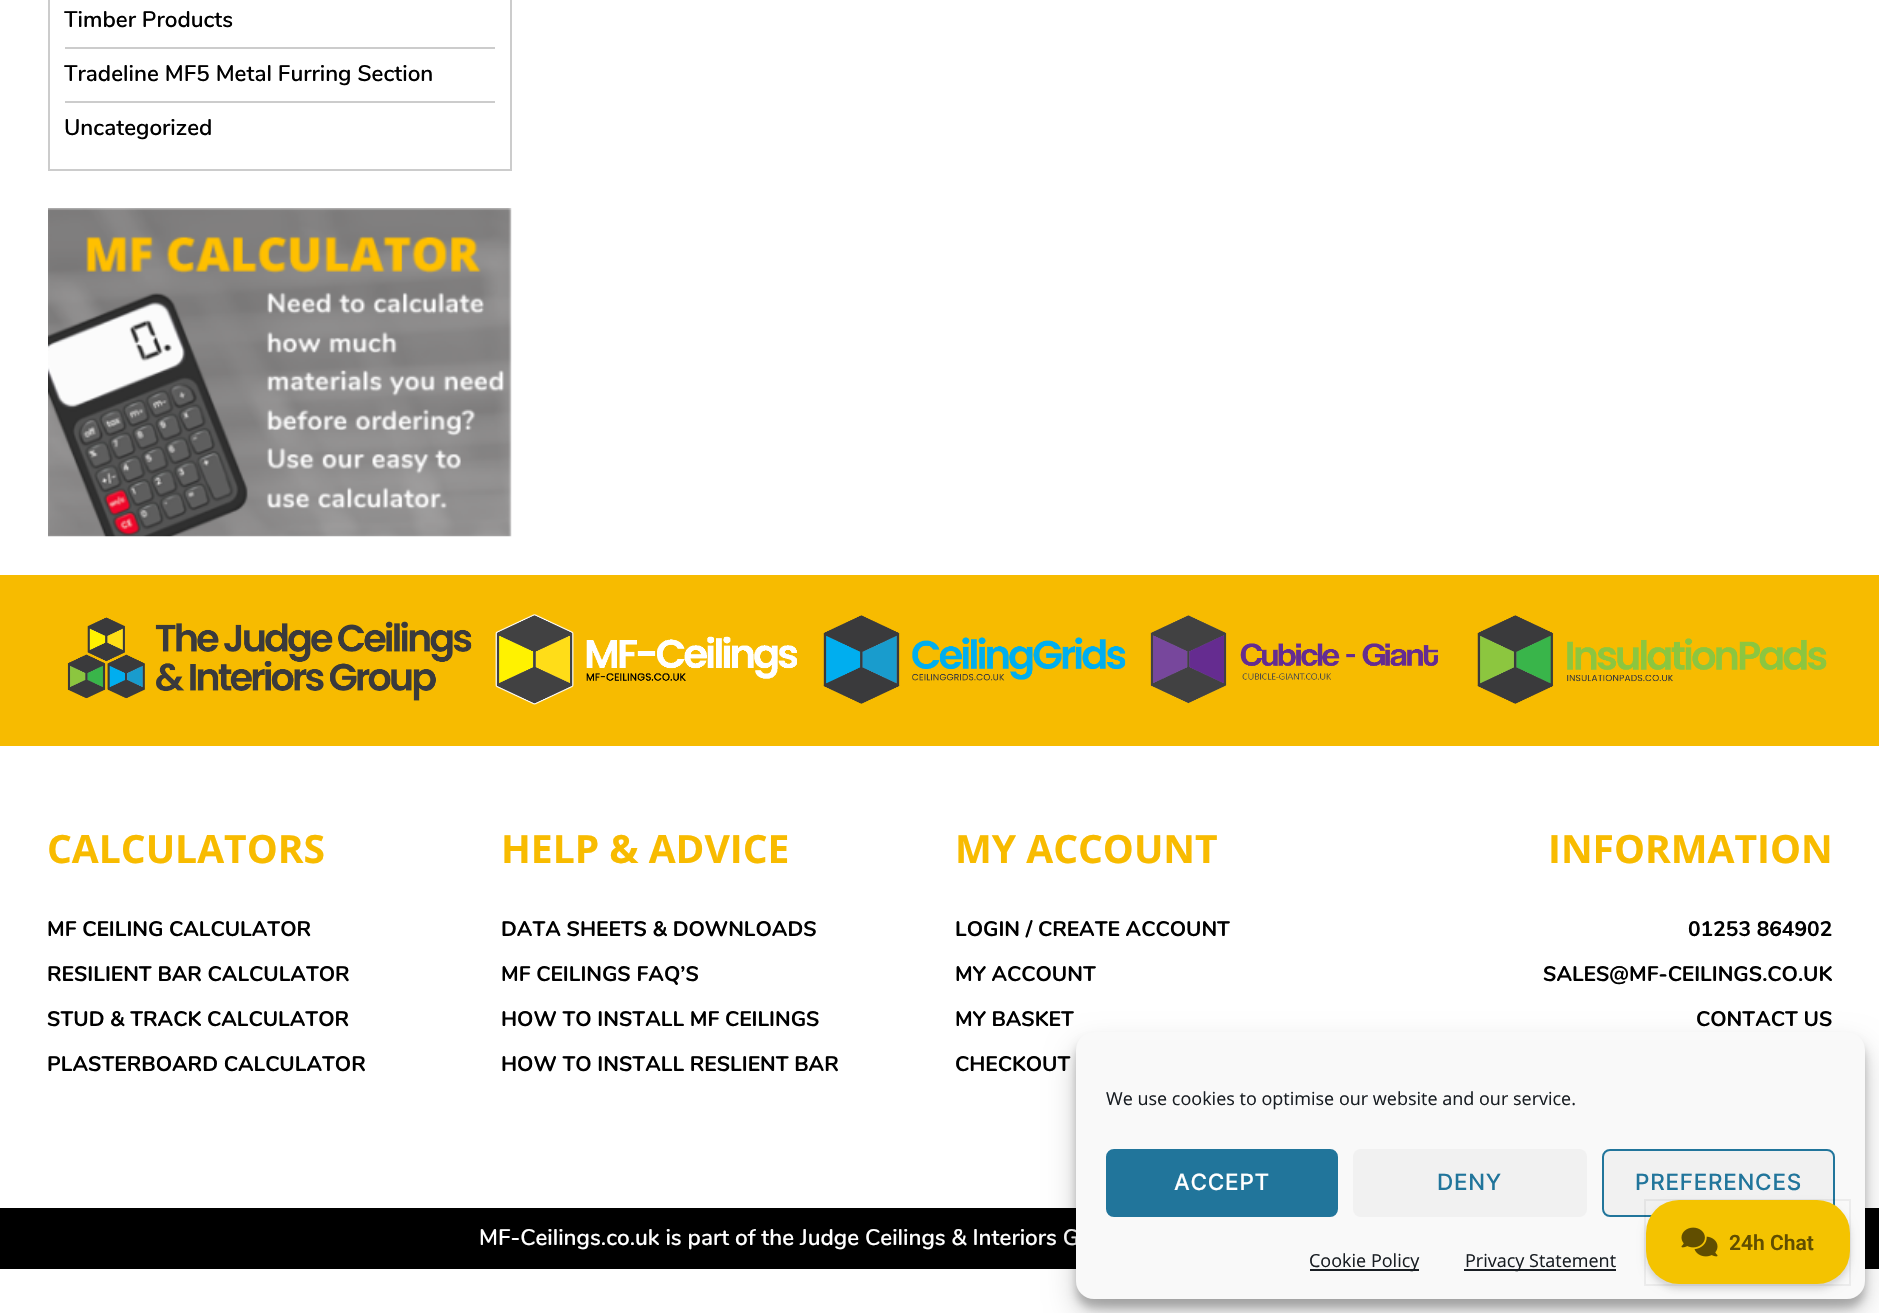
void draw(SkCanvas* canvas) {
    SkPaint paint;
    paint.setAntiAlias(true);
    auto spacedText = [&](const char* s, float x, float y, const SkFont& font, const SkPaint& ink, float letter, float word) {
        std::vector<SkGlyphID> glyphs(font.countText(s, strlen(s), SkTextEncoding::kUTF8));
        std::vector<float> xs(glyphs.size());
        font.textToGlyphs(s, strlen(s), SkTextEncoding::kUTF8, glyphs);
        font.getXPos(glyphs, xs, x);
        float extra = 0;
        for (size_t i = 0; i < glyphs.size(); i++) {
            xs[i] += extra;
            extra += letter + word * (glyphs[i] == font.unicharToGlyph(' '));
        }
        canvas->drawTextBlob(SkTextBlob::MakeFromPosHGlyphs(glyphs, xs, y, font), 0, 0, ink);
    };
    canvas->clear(0xFFFFFFFF);
    paint.setStyle(SkPaint::kStroke_Style);
    paint.setStrokeWidth(2);
    paint.setColor(0xFFCCCCCC);
    canvas->drawRect(SkRect::MakeXYWH(49, -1, 462, 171), paint);
    paint.setStyle(SkPaint::kFill_Style);
    canvas->drawRect(SkRect::MakeXYWH(65, 47, 430, 2), paint);
    SkFont font1(fontMgr->matchFamilyStyle("Nunito", SkFontStyle(600, SkFontStyle::kNormal_Width, SkFontStyle::kUpright_Slant)), 22.5f);
    font1.setSubpixel(true);
    paint.setColor(0xFF000000);
    canvas->drawString("Timber Products", 64, 27, font1, paint);
    paint.setColor(0xFFCCCCCC);
    canvas->drawRect(SkRect::MakeXYWH(65, 101, 430, 2), paint);
    paint.setColor(0xFF000000);
    canvas->drawString("Tradeline MF5 Metal Furring Section", 64, 81, font1, paint);
    canvas->drawString("Uncategorized", 64, 135, font1, paint);
    canvas->drawImageRect(SkImages::DeferredFromEncodedData(SkData::MakeFromFileName("img1.png")), SkRect::MakeXYWH(48, 208, 464, 329), SkSamplingOptions());
    paint.setColor(0xFFF7BB00);
    canvas->drawRect(SkRect::MakeXYWH(0, 575, 1879, 171), paint);
    canvas->drawImageRect(SkImages::DeferredFromEncodedData(SkData::MakeFromFileName("img2.png")), SkRect::MakeXYWH(67, 617, 405, 84), SkSamplingOptions());
    canvas->drawImageRect(SkImages::DeferredFromEncodedData(SkData::MakeFromFileName("img3.png")), SkRect::MakeXYWH(495, 614, 302, 91), SkSamplingOptions());
    canvas->drawImageRect(SkImages::DeferredFromEncodedData(SkData::MakeFromFileName("img4.png")), SkRect::MakeXYWH(823, 615, 303, 89), SkSamplingOptions());
    canvas->drawImageRect(SkImages::DeferredFromEncodedData(SkData::MakeFromFileName("img5.png")), SkRect::MakeXYWH(1150, 615, 288, 89), SkSamplingOptions());
    canvas->drawImageRect(SkImages::DeferredFromEncodedData(SkData::MakeFromFileName("img6.png")), SkRect::MakeXYWH(1477, 615, 350, 89), SkSamplingOptions());
    SkFont font2(fontMgr->matchFamilyStyle("Open Sans", SkFontStyle::Bold()), 39);
    font2.setSubpixel(true);
    paint.setColor(0xFFF8BB00);
    canvas->drawString("CALCULATORS", 47, 863, font2, paint);
    SkFont font3(fontMgr->matchFamilyStyle("Nunito", SkFontStyle::Bold()), 21);
    font3.setSubpixel(true);
    paint.setColor(0xFF000000);
    canvas->drawString("MF CEILING CALCULATOR", 47, 936, font3, paint);
    canvas->drawString("RESILIENT BAR CALCULATOR", 47, 981, font3, paint);
    canvas->drawString("STUD & TRACK CALCULATOR", 47, 1026, font3, paint);
    canvas->drawString("PLASTERBOARD CALCULATOR", 47, 1071, font3, paint);
    paint.setColor(0xFFF8BB00);
    canvas->drawString("HELP & ADVICE", 501, 863, font2, paint);
    paint.setColor(0xFF000000);
    canvas->drawString("DATA SHEETS & DOWNLOADS", 501, 936, font3, paint);
    canvas->drawString("MF CEILINGS FAQ’S", 501, 981, font3, paint);
    canvas->drawString("HOW TO INSTALL MF CEILINGS", 501, 1026, font3, paint);
    canvas->drawString("HOW TO INSTALL RESLIENT BAR", 501, 1071, font3, paint);
    paint.setColor(0xFFF8BB00);
    canvas->drawString("MY ACCOUNT", 955, 863, font2, paint);
    paint.setColor(0xFF000000);
    canvas->drawString("LOGIN / CREATE ACCOUNT", 955, 936, font3, paint);
    canvas->drawString("MY ACCOUNT", 955, 981, font3, paint);
    canvas->drawString("MY BASKET", 955, 1026, font3, paint);
    canvas->drawString("CHECKOUT", 955, 1071, font3, paint);
    paint.setColor(0xFFF8BB00);
    canvas->drawString("INFORMATION", 1548, 863, font2, paint);
    paint.setColor(0xFF000000);
    canvas->drawString("01253 864902", 1688, 936, font3, paint);
    canvas->drawString("SALES@MF-CEILINGS.CO.UK", 1543, 981, font3, paint);
    canvas->drawString("CONTACT US", 1696, 1026, font3, paint);
    canvas->drawRect(SkRect::MakeXYWH(0, 1208, 1879, 61), paint);
    paint.setColor(0xFFFFFFFF);
    canvas->drawString("MF-Ceilings.co.uk is part of the Judge Ceilings & Interiors G", 479, 1245, font1, paint);
    paint.setColor(0x3B000000);
    paint.setMaskFilter(SkMaskFilter::MakeBlur(kNormal_SkBlurStyle, 4.5f));
    canvas->drawRoundRect(SkRect::MakeXYWH(1076, 1041, 789, 267), 18, 18, paint);
    paint.setMaskFilter(nullptr);
    paint.setColor(0x30000000);
    paint.setMaskFilter(SkMaskFilter::MakeBlur(kNormal_SkBlurStyle, 15));
    canvas->drawRoundRect(SkRect::MakeXYWH(1076, 1047, 789, 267), 18, 18, paint);
    paint.setMaskFilter(nullptr);
    paint.setColor(0xFFF9F9F9);
    canvas->drawRoundRect(SkRect::MakeXYWH(1076, 1032, 789, 267), 18, 18, paint);
    SkFont font4(fontMgr->matchFamilyStyle("Open Sans", SkFontStyle::Normal()), 18);
    font4.setSubpixel(true);
    paint.setColor(0xFF191E23);
    canvas->drawString("We use cookies to optimise our website and our service.", 1106, 1105, font4, paint);
    paint.setColor(0xFF21759B);
    canvas->drawRoundRect(SkRect::MakeXYWH(1107, 1150, 230, 66), 7, 7, paint);
    paint.setStyle(SkPaint::kStroke_Style);
    canvas->drawRoundRect(SkRect::MakeXYWH(1107, 1150, 230, 66), 7, 7, paint);
    SkFont font5(fontMgr->matchFamilyStyle("Inter", SkFontStyle(500, SkFontStyle::kNormal_Width, SkFontStyle::kUpright_Slant)), 22.5f);
    font5.setSubpixel(true);
    paint.setStyle(SkPaint::kFill_Style);
    paint.setColor(0xFFFFFFFF);
    spacedText("ACCEPT", 1174, 1190, font5, paint, 0.75f, 0);
    paint.setColor(0xFFF1F1F1);
    canvas->drawRoundRect(SkRect::MakeXYWH(1353, 1149, 234, 68), 8, 8, paint);
    paint.setColor(0xFF21759B);
    spacedText("DENY", 1437, 1190, font5, paint, 0.75f, 0);
    paint.setColor(0xFFF1F1F1);
    canvas->drawRoundRect(SkRect::MakeXYWH(1603, 1150, 231, 66), 7, 7, paint);
    paint.setStyle(SkPaint::kStroke_Style);
    paint.setColor(0xFF21759B);
    canvas->drawRoundRect(SkRect::MakeXYWH(1603, 1150, 231, 66), 7, 7, paint);
    paint.setStyle(SkPaint::kFill_Style);
    spacedText("PREFERENCES", 1635, 1190, font5, paint, 0.75f, 0);
    paint.setColor(0xFF191E23);
    canvas->drawRect(SkRect::MakeXYWH(1310, 1269, 109, 2), paint);
    canvas->drawString("Cookie Policy", 1309, 1267, font4, paint);
    canvas->drawRect(SkRect::MakeXYWH(1464, 1269, 152, 2), paint);
    canvas->drawString("Privacy Statement", 1465, 1267, font4, paint);
    paint.setColor(0x0D000000);
    paint.setMaskFilter(SkMaskFilter::MakeBlur(kNormal_SkBlurStyle, 2));
    canvas->drawRoundRect(SkRect::MakeXYWH(1646, 1205, 204, 84), 33, 33, paint);
    paint.setMaskFilter(nullptr);
    paint.setColor(0x1A000000);
    paint.setMaskFilter(SkMaskFilter::MakeBlur(kNormal_SkBlurStyle, 4));
    canvas->drawRoundRect(SkRect::MakeXYWH(1646, 1205, 204, 84), 33, 33, paint);
    paint.setMaskFilter(nullptr);
    paint.setStyle(SkPaint::kStroke_Style);
    paint.setColor(0x0D000000);
    canvas->drawRect(SkRect::MakeXYWH(1645, 1200, 205, 85), paint);
    paint.setStyle(SkPaint::kFill_Style);
    paint.setColor(0xFFF4C300);
    canvas->drawRoundRect(SkRect::MakeXYWH(1646, 1200, 204, 84), 33, 33, paint);
    canvas->drawImageRect(SkImages::DeferredFromEncodedData(SkData::MakeFromFileName("img7.png")), SkRect::MakeXYWH(1681, 1227, 37, 30), SkSamplingOptions());
    SkFont font6(fontMgr->matchFamilyStyle("Roboto", SkFontStyle(600, SkFontStyle::kNormal_Width, SkFontStyle::kUpright_Slant)), 21);
    font6.setSubpixel(true);
    paint.setColor(0xFF614E00);
    canvas->drawString("24h Chat", 1729, 1250, font6, paint);
}
